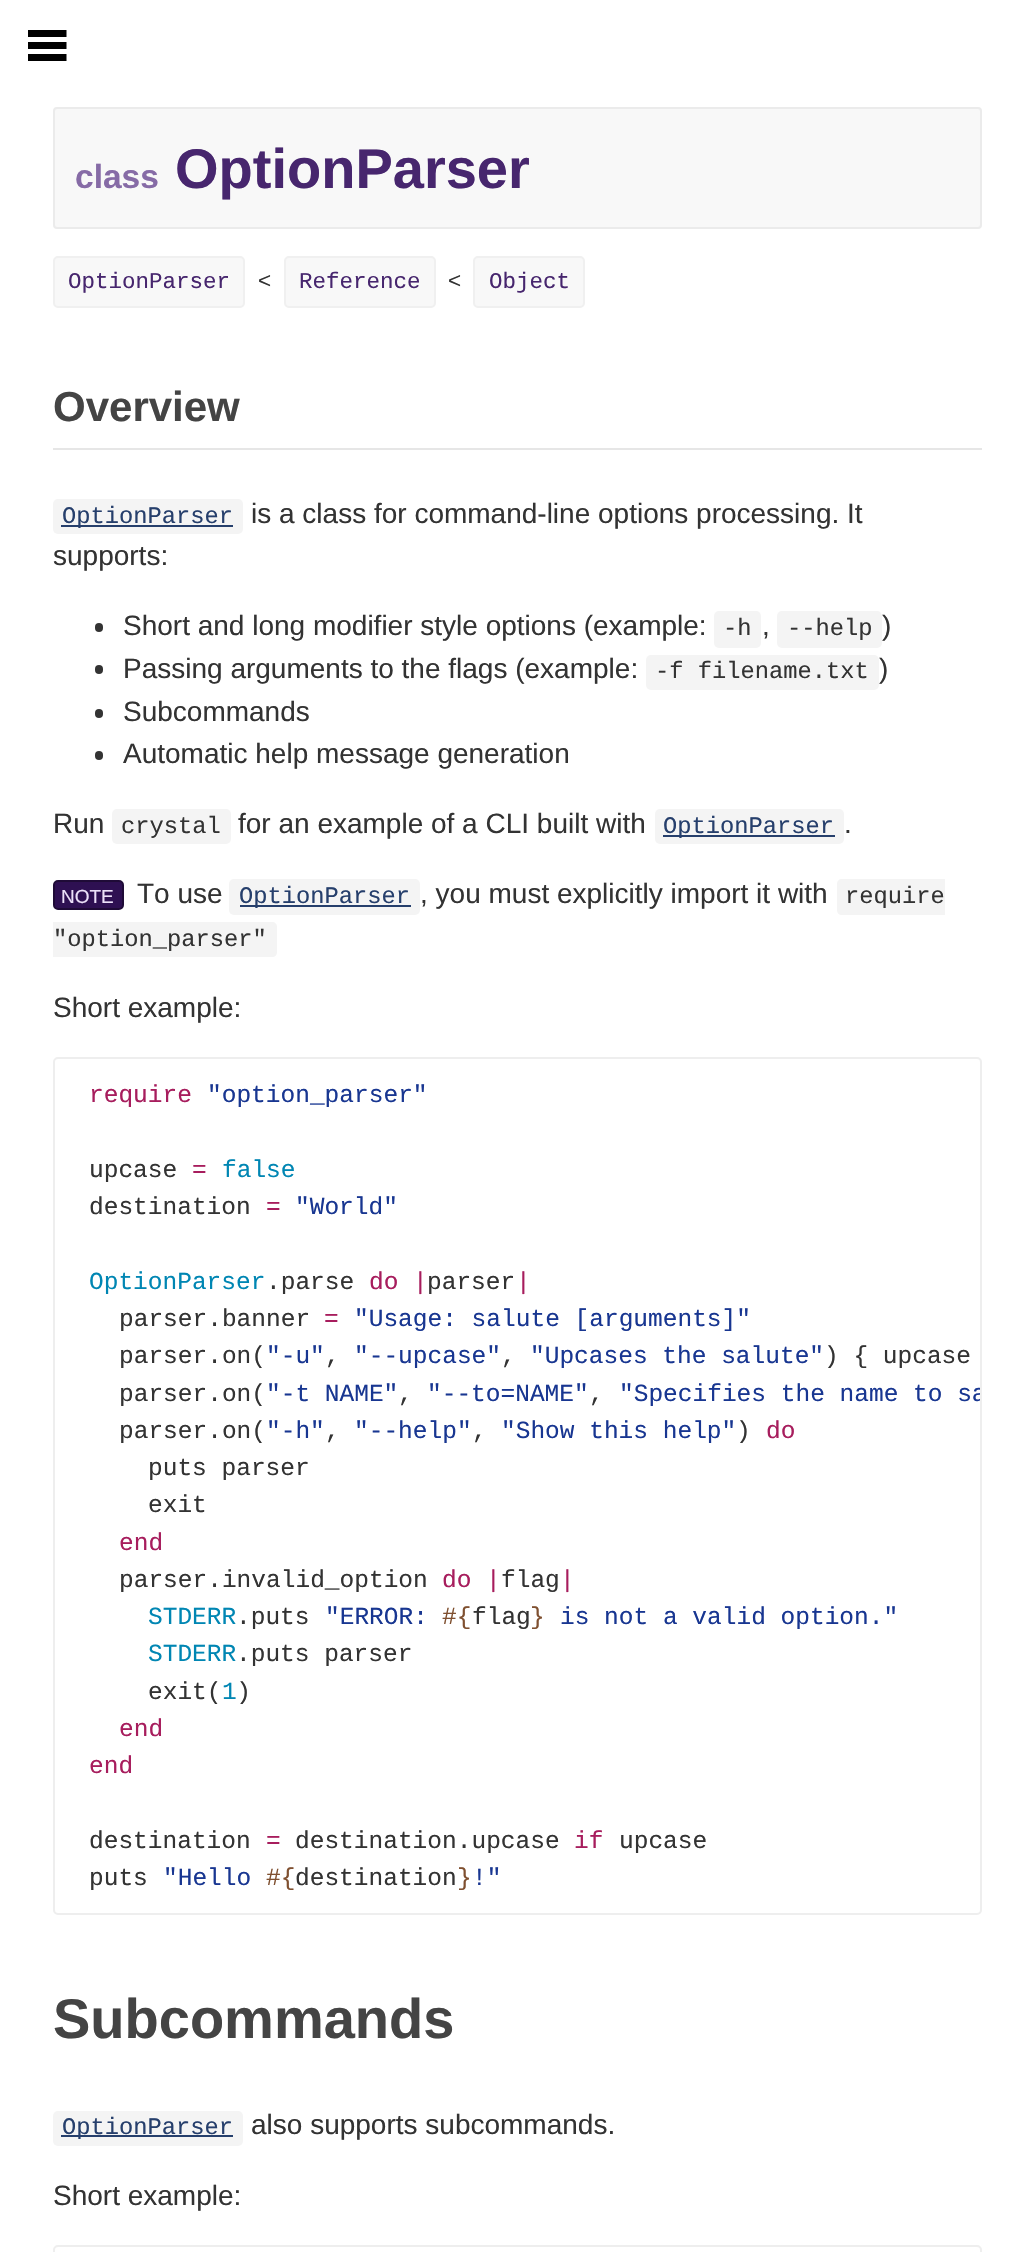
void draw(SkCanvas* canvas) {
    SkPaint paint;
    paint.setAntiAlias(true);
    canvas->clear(0xFFFFFFFF);
    paint.setColor(0xFF000000);
    canvas->drawPath(SkPathBuilder().moveTo(28, 30).lineTo(28, 37).lineTo(66.5f, 37).lineTo(66.5f, 30).close().moveTo(28, 42).lineTo(28, 49).lineTo(66.5f, 49).lineTo(66.5f, 42).close().moveTo(28, 54).lineTo(28, 61).lineTo(66.5f, 61).lineTo(66.5f, 54).close().detach(), paint);
    paint.setColor(0xFFF8F8F8);
    canvas->drawRoundRect(SkRect::MakeXYWH(54, 108, 927, 120), 3, 3, paint);
    paint.setStyle(SkPaint::kStroke_Style);
    paint.setStrokeWidth(2);
    paint.setColor(0xFFEBEBEB);
    canvas->drawRoundRect(SkRect::MakeXYWH(54, 108, 927, 120), 3, 3, paint);
    SkFont font1(fontMgr->matchFamilyStyle("Liberation Sans", SkFontStyle::Bold()), 33.5f);
    font1.setSubpixel(true);
    paint.setStyle(SkPaint::kFill_Style);
    paint.setColor(0xFF866BA6);
    canvas->drawString("class", 75, 188, font1, paint);
    SkFont font2(fontMgr->matchFamilyStyle("Liberation Sans", SkFontStyle::Bold()), 56);
    font2.setSubpixel(true);
    paint.setColor(0xFF47266E);
    canvas->drawString("OptionParser", 175, 188, font2, paint);
    paint.setColor(0xFFF8F8F8);
    canvas->drawRoundRect(SkRect::MakeXYWH(54, 257, 190, 50), 4, 4, paint);
    paint.setStyle(SkPaint::kStroke_Style);
    paint.setColor(0xFFF0F0F0);
    canvas->drawRoundRect(SkRect::MakeXYWH(54, 257, 190, 50), 4, 4, paint);
    SkFont font3(fontMgr->matchFamilyStyle("Liberation Mono", SkFontStyle::Normal()), 22.5f);
    font3.setSubpixel(true);
    paint.setStyle(SkPaint::kFill_Style);
    paint.setColor(0xFF47266E);
    canvas->drawString("OptionParser", 68, 288, font3, paint);
    SkFont font4(fontMgr->matchFamilyStyle("Liberation Sans", SkFontStyle::Normal()), 22.5f);
    font4.setSubpixel(true);
    paint.setColor(0xFF333333);
    canvas->drawString("<", 258, 288, font4, paint);
    paint.setColor(0xFFF8F8F8);
    canvas->drawRoundRect(SkRect::MakeXYWH(285, 257, 150, 50), 4, 4, paint);
    paint.setStyle(SkPaint::kStroke_Style);
    paint.setColor(0xFFF0F0F0);
    canvas->drawRoundRect(SkRect::MakeXYWH(285, 257, 150, 50), 4, 4, paint);
    paint.setStyle(SkPaint::kFill_Style);
    paint.setColor(0xFF47266E);
    canvas->drawString("Reference", 299, 288, font3, paint);
    paint.setColor(0xFF333333);
    canvas->drawString("<", 448, 288, font4, paint);
    paint.setColor(0xFFF8F8F8);
    canvas->drawRoundRect(SkRect::MakeXYWH(474, 257, 110, 50), 4, 4, paint);
    paint.setStyle(SkPaint::kStroke_Style);
    paint.setColor(0xFFF0F0F0);
    canvas->drawRoundRect(SkRect::MakeXYWH(474, 257, 110, 50), 4, 4, paint);
    paint.setStyle(SkPaint::kFill_Style);
    paint.setColor(0xFF47266E);
    canvas->drawString("Object", 489, 288, font3, paint);
    paint.setColor(0xFFE6E6E6);
    canvas->drawRect(SkRect::MakeXYWH(53, 448, 929, 2), paint);
    SkFont font5(fontMgr->matchFamilyStyle("Liberation Sans", SkFontStyle::Bold()), 42);
    font5.setSubpixel(true);
    paint.setColor(0xFF444444);
    canvas->drawString("Overview", 53, 421, font5, paint);
    paint.setColor(0xFFF4F4F4);
    canvas->drawRoundRect(SkRect::MakeXYWH(53, 499, 190, 35), 5, 5, paint);
    paint.setColor(0xFF263F6C);
    canvas->drawRect(SkRect::MakeXYWH(61, 525, 172, 2), paint);
    SkFont font6(fontMgr->matchFamilyStyle("Liberation Mono", SkFontStyle::Normal()), 23.75f);
    font6.setSubpixel(true);
    canvas->drawString("OptionParser", 62, 523, font6, paint);
    SkFont font7(fontMgr->matchFamilyStyle("Liberation Sans", SkFontStyle::Normal()), 28);
    font7.setSubpixel(true);
    paint.setColor(0xFF333333);
    canvas->drawString("is a class for command-line options processing. It", 251, 523, font7, paint);
    canvas->drawString("supports:", 53, 565, font7, paint);
    canvas->drawRoundRect(SkRect::MakeXYWH(95, 623, 8, 9), 4, 4, paint);
    canvas->drawString("Short and long modifier style options (example:", 123, 635, font7, paint);
    paint.setColor(0xFFF4F4F4);
    canvas->drawRoundRect(SkRect::MakeXYWH(714, 611, 47, 37), 5, 5, paint);
    paint.setColor(0xFF333333);
    canvas->drawString("-h", 723, 635, font6, paint);
    paint.setColor(0xFFF4F4F4);
    canvas->drawRoundRect(SkRect::MakeXYWH(777, 611, 105, 37), 5, 5, paint);
    paint.setColor(0xFF333333);
    canvas->drawString("--help", 787, 635, font6, paint);
    canvas->drawString(")", 882, 635, font7, paint);
    canvas->drawString(",", 762, 635, font7, paint);
    canvas->drawRoundRect(SkRect::MakeXYWH(95, 665, 8, 9), 4, 4, paint);
    canvas->drawString("Passing arguments to the flags (example:", 123, 678, font7, paint);
    paint.setColor(0xFFF4F4F4);
    canvas->drawRoundRect(SkRect::MakeXYWH(646, 655, 233, 35), 5, 5, paint);
    paint.setColor(0xFF333333);
    canvas->drawString("-f filename.txt", 655, 678, font6, paint);
    canvas->drawString(")", 879, 678, font7, paint);
    canvas->drawRoundRect(SkRect::MakeXYWH(95, 709, 8, 9), 4, 4, paint);
    canvas->drawString("Subcommands", 123, 721, font7, paint);
    canvas->drawRoundRect(SkRect::MakeXYWH(95, 751, 8, 9), 4, 4, paint);
    canvas->drawString("Automatic help message generation", 123, 763, font7, paint);
    canvas->drawString("Run", 53, 833, font7, paint);
    paint.setColor(0xFFF4F4F4);
    canvas->drawRoundRect(SkRect::MakeXYWH(112, 809, 119, 35), 5, 5, paint);
    paint.setColor(0xFF333333);
    canvas->drawString("crystal", 121, 833, font6, paint);
    canvas->drawString("for an example of a CLI built with", 238, 833, font7, paint);
    paint.setColor(0xFFF4F4F4);
    canvas->drawRoundRect(SkRect::MakeXYWH(655, 809, 189, 35), 5, 5, paint);
    paint.setColor(0xFF263F6C);
    canvas->drawRect(SkRect::MakeXYWH(663, 835, 172, 2), paint);
    canvas->drawString("OptionParser", 663, 833, font6, paint);
    paint.setColor(0xFF333333);
    canvas->drawString(".", 844, 833, font7, paint);
    paint.setColor(0xFF2E1052);
    canvas->drawRoundRect(SkRect::MakeXYWH(54, 881, 69, 28), 4, 4, paint);
    paint.setStyle(SkPaint::kStroke_Style);
    paint.setColor(0xFF1F0B37);
    canvas->drawRoundRect(SkRect::MakeXYWH(54, 881, 69, 28), 4, 4, paint);
    SkFont font8(fontMgr->matchFamilyStyle("Liberation Sans", SkFontStyle::Normal()), 19);
    font8.setSubpixel(true);
    paint.setStyle(SkPaint::kFill_Style);
    paint.setColor(0xFFECE1F9);
    canvas->drawString("NOTE", 61, 903, font8, paint);
    paint.setColor(0xFF333333);
    canvas->drawString("To use", 137, 903, font7, paint);
    paint.setColor(0xFFF4F4F4);
    canvas->drawRoundRect(SkRect::MakeXYWH(229, 879, 191, 36), 5, 5, paint);
    paint.setColor(0xFF263F6C);
    canvas->drawRect(SkRect::MakeXYWH(240, 905, 171, 2), paint);
    canvas->drawString("OptionParser", 239, 903, font6, paint);
    paint.setColor(0xFF333333);
    canvas->drawString(", you must explicitly import it with", 420, 903, font7, paint);
    paint.setColor(0xFFF4F4F4);
    canvas->drawPath(SkPathBuilder().moveTo(842, 879).lineTo(945, 879).lineTo(945, 915).lineTo(842, 915).cubicTo(839, 915, 837, 913, 837, 910).lineTo(837, 884).cubicTo(837, 881, 839, 879, 842, 879).close().detach(), paint);
    paint.setColor(0xFF333333);
    canvas->drawString("require", 845, 903, font6, paint);
    paint.setColor(0xFFF4F4F4);
    canvas->drawPath(SkPathBuilder().moveTo(53, 922).lineTo(272, 922).cubicTo(275, 922, 277, 924, 277, 927).lineTo(277, 952).cubicTo(277, 955, 275, 957, 272, 957).lineTo(53, 957).close().detach(), paint);
    paint.setColor(0xFF333333);
    canvas->drawString("\"option_parser\"", 53, 946, font6, paint);
    canvas->drawString("Short example:", 53, 1017, font7, paint);
    paint.setStyle(SkPaint::kStroke_Style);
    paint.setColor(0xFFEEEEEE);
    canvas->drawRoundRect(SkRect::MakeXYWH(54, 1058, 927, 856), 4, 4, paint);
    SkFont font9(fontMgr->matchFamilyStyle("Liberation Mono", SkFontStyle::Normal()), 24.5f);
    font9.setSubpixel(true);
    paint.setStyle(SkPaint::kFill_Style);
    paint.setColor(0xFFA71D5D);
    canvas->drawString("require", 89, 1102, font9, paint);
    paint.setColor(0xFF183691);
    canvas->drawString("\"option_parser\"", 207, 1102, font9, paint);
    paint.setColor(0xFF333333);
    canvas->drawString("upcase", 89, 1177, font9, paint);
    paint.setColor(0xFFA71D5D);
    canvas->drawString("=", 192, 1177, font9, paint);
    paint.setColor(0xFF0086B3);
    canvas->drawString("false", 222, 1177, font9, paint);
    paint.setColor(0xFF333333);
    canvas->drawString("destination", 89, 1214, font9, paint);
    paint.setColor(0xFFA71D5D);
    canvas->drawString("=", 266, 1214, font9, paint);
    paint.setColor(0xFF183691);
    canvas->drawString("\"World\"", 295, 1214, font9, paint);
    paint.setColor(0xFF0086B3);
    canvas->drawString("OptionParser", 89, 1289, font9, paint);
    paint.setColor(0xFF333333);
    canvas->drawString(".parse", 266, 1289, font9, paint);
    paint.setColor(0xFFA71D5D);
    canvas->drawString("do |", 369, 1289, font9, paint);
    paint.setColor(0xFF333333);
    canvas->drawString("parser", 427, 1289, font9, paint);
    paint.setColor(0xFFA71D5D);
    canvas->drawString("|", 516, 1289, font9, paint);
    paint.setColor(0xFF333333);
    canvas->drawString("parser.banner", 119, 1326, font9, paint);
    paint.setColor(0xFFA71D5D);
    canvas->drawString("=", 324, 1326, font9, paint);
    paint.setColor(0xFF183691);
    canvas->drawString("\"Usage: salute [arguments]\"", 354, 1326, font9, paint);
    paint.setColor(0xFF333333);
    canvas->drawString("parser.on(", 119, 1363, font9, paint);
    paint.setColor(0xFF183691);
    canvas->drawString("\"-u\"", 266, 1363, font9, paint);
    paint.setColor(0xFF333333);
    canvas->drawString(",", 325, 1363, font9, paint);
    paint.setColor(0xFF183691);
    canvas->drawString("\"--upcase\"", 354, 1363, font9, paint);
    paint.setColor(0xFF333333);
    canvas->drawString(",", 501, 1363, font9, paint);
    paint.setColor(0xFF183691);
    canvas->drawString("\"Upcases the salute\"", 530, 1363, font9, paint);
    paint.setColor(0xFF333333);
    canvas->drawString(") { upcase", 824, 1363, font9, paint);
    canvas->drawString("parser.on(", 119, 1401, font9, paint);
    paint.setColor(0xFF183691);
    canvas->drawString("\"-t NAME\"", 266, 1401, font9, paint);
    paint.setColor(0xFF333333);
    canvas->drawString(",", 398, 1401, font9, paint);
    paint.setColor(0xFF183691);
    canvas->drawString("\"--to=NAME\"", 427, 1401, font9, paint);
    paint.setColor(0xFF333333);
    canvas->drawString(",", 589, 1401, font9, paint);
    canvas->save();
    canvas->clipPath(SkPathBuilder().moveTo(58, 1059).lineTo(976, 1059).cubicTo(978, 1059, 980, 1061, 980, 1063).lineTo(980, 1909).cubicTo(980, 1911, 978, 1913, 976, 1913).lineTo(58, 1913).cubicTo(56, 1913, 54, 1911, 54, 1909).lineTo(54, 1063).cubicTo(54, 1061, 56, 1059, 58, 1059).close().detach(), true);
    paint.setColor(0xFF183691);
    canvas->drawString("\"Specifies the name to sa", 619, 1401, font9, paint);
    canvas->restore();
    paint.setColor(0xFF333333);
    canvas->drawString("parser.on(", 119, 1438, font9, paint);
    paint.setColor(0xFF183691);
    canvas->drawString("\"-h\"", 266, 1438, font9, paint);
    paint.setColor(0xFF333333);
    canvas->drawString(",", 325, 1438, font9, paint);
    paint.setColor(0xFF183691);
    canvas->drawString("\"--help\"", 354, 1438, font9, paint);
    paint.setColor(0xFF333333);
    canvas->drawString(",", 472, 1438, font9, paint);
    paint.setColor(0xFF183691);
    canvas->drawString("\"Show this help\"", 501, 1438, font9, paint);
    paint.setColor(0xFF333333);
    canvas->drawString(")", 736, 1438, font9, paint);
    paint.setColor(0xFFA71D5D);
    canvas->drawString("do", 766, 1438, font9, paint);
    paint.setColor(0xFF333333);
    canvas->drawString("puts parser", 148, 1475, font9, paint);
    canvas->drawString("exit", 148, 1512, font9, paint);
    paint.setColor(0xFFA71D5D);
    canvas->drawString("end", 119, 1550, font9, paint);
    paint.setColor(0xFF333333);
    canvas->drawString("parser.invalid_option", 119, 1587, font9, paint);
    paint.setColor(0xFFA71D5D);
    canvas->drawString("do |", 442, 1587, font9, paint);
    paint.setColor(0xFF333333);
    canvas->drawString("flag", 501, 1587, font9, paint);
    paint.setColor(0xFFA71D5D);
    canvas->drawString("|", 560, 1587, font9, paint);
    paint.setColor(0xFF0086B3);
    canvas->drawString("STDERR", 148, 1624, font9, paint);
    paint.setColor(0xFF333333);
    canvas->drawString(".puts", 236, 1624, font9, paint);
    paint.setColor(0xFF183691);
    canvas->drawString("\"ERROR:", 325, 1624, font9, paint);
    paint.setColor(0xFF7F5030);
    canvas->drawString("#{", 442, 1624, font9, paint);
    paint.setColor(0xFF333333);
    canvas->drawString("flag", 472, 1624, font9, paint);
    paint.setColor(0xFF7F5030);
    canvas->drawString("}", 530, 1624, font9, paint);
    paint.setColor(0xFF183691);
    canvas->drawString("is not a valid option.\"", 560, 1624, font9, paint);
    paint.setColor(0xFF0086B3);
    canvas->drawString("STDERR", 148, 1661, font9, paint);
    paint.setColor(0xFF333333);
    canvas->drawString(".puts parser", 236, 1661, font9, paint);
    canvas->drawString("exit( )", 148, 1699, font9, paint);
    paint.setColor(0xFF0086B3);
    canvas->drawString("1", 222, 1699, font9, paint);
    paint.setColor(0xFFA71D5D);
    canvas->drawString("end", 119, 1736, font9, paint);
    canvas->drawString("end", 89, 1773, font9, paint);
    paint.setColor(0xFF333333);
    canvas->drawString("destination", 89, 1848, font9, paint);
    paint.setColor(0xFFA71D5D);
    canvas->drawString("=", 266, 1848, font9, paint);
    paint.setColor(0xFF333333);
    canvas->drawString("destination.upcase", 295, 1848, font9, paint);
    paint.setColor(0xFFA71D5D);
    canvas->drawString("if", 574, 1848, font9, paint);
    paint.setColor(0xFF333333);
    canvas->drawString("upcase", 619, 1848, font9, paint);
    canvas->drawString("puts", 89, 1885, font9, paint);
    paint.setColor(0xFF183691);
    canvas->drawString("\"Hello", 163, 1885, font9, paint);
    paint.setColor(0xFF7F5030);
    canvas->drawString("#{", 266, 1885, font9, paint);
    paint.setColor(0xFF333333);
    canvas->drawString("destination", 295, 1885, font9, paint);
    paint.setColor(0xFF7F5030);
    canvas->drawString("}", 457, 1885, font9, paint);
    paint.setColor(0xFF183691);
    canvas->drawString("!\"", 472, 1885, font9, paint);
    paint.setColor(0xFF444444);
    canvas->drawString("Subcommands", 53, 2038, font2, paint);
    paint.setColor(0xFFF4F4F4);
    canvas->drawRoundRect(SkRect::MakeXYWH(53, 2111, 190, 35), 5, 5, paint);
    paint.setColor(0xFF263F6C);
    canvas->drawRect(SkRect::MakeXYWH(61, 2135, 172, 2), paint);
    canvas->drawString("OptionParser", 62, 2134, font6, paint);
    paint.setColor(0xFF333333);
    canvas->drawString("also supports subcommands.", 251, 2134, font7, paint);
    canvas->drawString("Short example:", 53, 2205, font7, paint);
    paint.setStyle(SkPaint::kStroke_Style);
    paint.setColor(0xFFEEEEEE);
    canvas->drawRoundRect(SkRect::MakeXYWH(54, 2246, 927, 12), 4, 4, paint);
}
